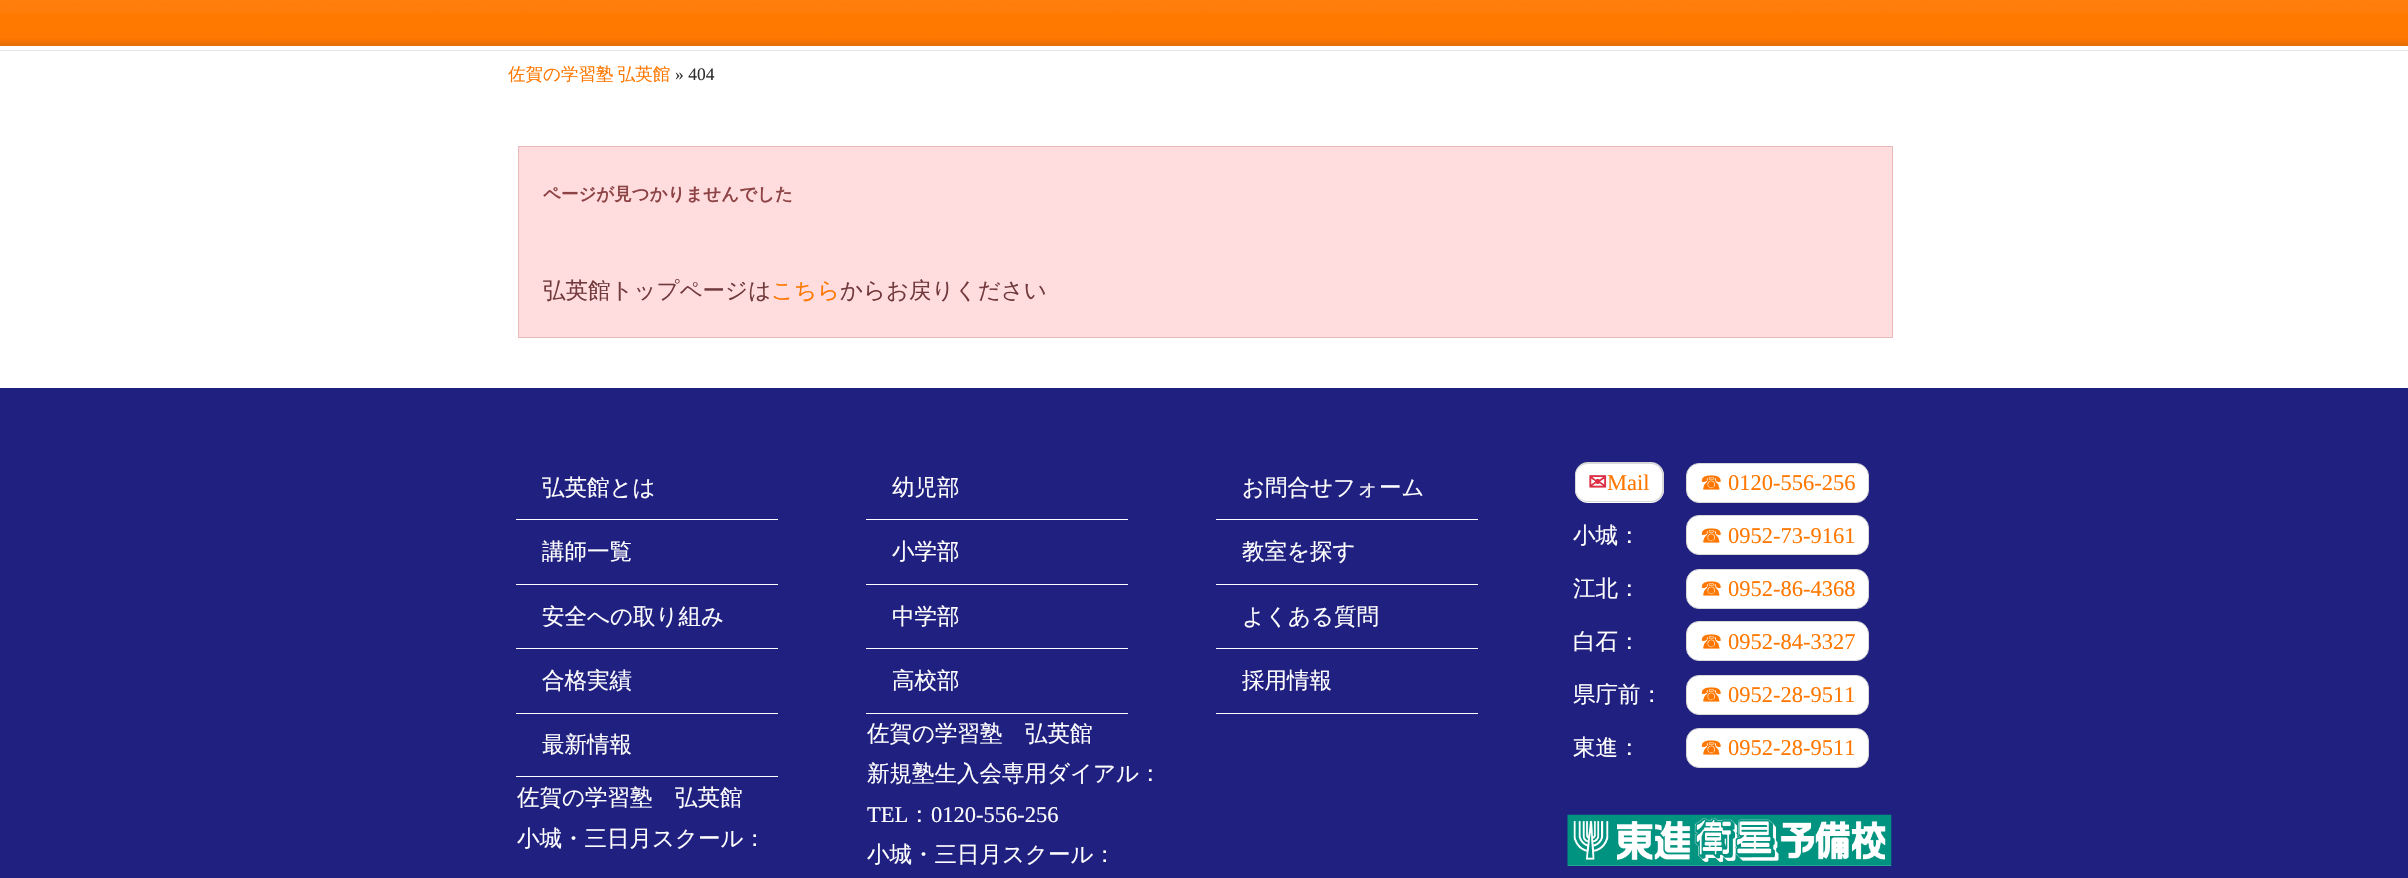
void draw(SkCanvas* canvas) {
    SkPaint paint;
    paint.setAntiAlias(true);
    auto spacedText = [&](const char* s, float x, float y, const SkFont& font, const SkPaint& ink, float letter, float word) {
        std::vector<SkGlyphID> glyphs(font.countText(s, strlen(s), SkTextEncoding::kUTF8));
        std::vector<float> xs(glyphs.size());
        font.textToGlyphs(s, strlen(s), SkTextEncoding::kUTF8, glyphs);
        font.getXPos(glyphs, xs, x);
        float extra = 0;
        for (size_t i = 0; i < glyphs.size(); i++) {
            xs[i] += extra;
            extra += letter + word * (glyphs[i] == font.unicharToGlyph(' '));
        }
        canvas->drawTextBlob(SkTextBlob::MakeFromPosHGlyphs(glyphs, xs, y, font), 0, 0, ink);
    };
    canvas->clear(0xFFFFFFFF);
    paint.setColor(0xFFE6E6E6);
    canvas->drawRect(SkRect::MakeXYWH(0, 50, 2408, 1), paint);
    paint.setColor(0xFFFF7800);
    canvas->drawRect(SkRect::MakeXYWH(0, 0, 2408, 46), paint);
    canvas->drawImageRect(SkImages::DeferredFromEncodedData(SkData::MakeFromFileName("img1.png")), SkRect::MakeXYWH(0, 0, 2408, 14), SkSamplingOptions());
    canvas->drawImageRect(SkImages::DeferredFromEncodedData(SkData::MakeFromFileName("img2.png")), SkRect::MakeXYWH(0, 39, 2408, 7), SkSamplingOptions());
    SkFont font1(fontMgr->matchFamilyStyle("WenQuanYi Zen Hei", SkFontStyle(500, SkFontStyle::kNormal_Width, SkFontStyle::kUpright_Slant)), 17.5f);
    font1.setSubpixel(true);
    paint.setColor(0xFFFF7700);
    spacedText("佐賀の学習塾 弘英館", 508, 80, font1, paint, 0, -1);
    SkFont font2(fontMgr->matchFamilyStyle("Liberation Serif", SkFontStyle::Normal()), 17.5f);
    font2.setSubpixel(true);
    paint.setColor(0xFF303030);
    canvas->drawString("» 404", 675, 80, font2, paint);
    paint.setColor(0xFFFFDCDD);
    canvas->drawRect(SkRect::MakeXYWH(518.5f, 146.5f, 1374, 191), paint);
    paint.setStyle(SkPaint::kStroke_Style);
    paint.setStrokeWidth(1);
    paint.setColor(0xFFE9B9BB);
    canvas->drawRect(SkRect::MakeXYWH(518.5f, 146.5f, 1374, 191), paint);
    SkFont font3(fontMgr->matchFamilyStyle("WenQuanYi Zen Hei", SkFontStyle::Bold()), 17.5f);
    font3.setSubpixel(true);
    paint.setStyle(SkPaint::kFill_Style);
    paint.setColor(0xFF8D4345);
    canvas->drawString("ページが見つかりませんでした", 543, 200, font3, paint);
    SkFont font4(fontMgr->matchFamilyStyle("WenQuanYi Zen Hei", SkFontStyle(500, SkFontStyle::kNormal_Width, SkFontStyle::kUpright_Slant)), 22.5f);
    font4.setSubpixel(true);
    paint.setColor(0xFF713A3C);
    canvas->drawString("弘英館トップページは", 543, 298, font4, paint);
    paint.setColor(0xFFFF7700);
    canvas->drawString("こちら", 771, 298, font4, paint);
    paint.setColor(0xFF713A3C);
    canvas->drawString("からお戻りください", 840, 298, font4, paint);
    paint.setColor(0xFF202080);
    canvas->drawRect(SkRect::MakeXYWH(0, 388, 2408, 490), paint);
    paint.setColor(0xFFFFFFFF);
    canvas->drawRect(SkRect::MakeXYWH(516, 519, 262, 1), paint);
    canvas->drawString("弘英館とは", 542, 495, font4, paint);
    canvas->drawRect(SkRect::MakeXYWH(516, 584, 262, 1), paint);
    canvas->drawString("講師一覧", 542, 559, font4, paint);
    canvas->drawRect(SkRect::MakeXYWH(516, 648, 262, 1), paint);
    canvas->drawString("安全への取り組み", 542, 624, font4, paint);
    canvas->drawRect(SkRect::MakeXYWH(516, 713, 262, 1), paint);
    canvas->drawString("合格実績", 542, 688, font4, paint);
    canvas->drawRect(SkRect::MakeXYWH(516, 776, 262, 1), paint);
    canvas->drawString("最新情報", 542, 752, font4, paint);
    canvas->drawString("佐賀の学習塾　弘英館", 517, 805, font4, paint);
    canvas->drawString("小城・三日月スクール：", 517, 846, font4, paint);
    canvas->drawRect(SkRect::MakeXYWH(866, 519, 262, 1), paint);
    canvas->drawString("幼児部", 892, 495, font4, paint);
    canvas->drawRect(SkRect::MakeXYWH(866, 584, 262, 1), paint);
    canvas->drawString("小学部", 892, 559, font4, paint);
    canvas->drawRect(SkRect::MakeXYWH(866, 648, 262, 1), paint);
    canvas->drawString("中学部", 892, 624, font4, paint);
    canvas->drawRect(SkRect::MakeXYWH(866, 713, 262, 1), paint);
    canvas->drawString("高校部", 892, 688, font4, paint);
    canvas->drawString("佐賀の学習塾　弘英館", 867, 741, font4, paint);
    canvas->drawString("新規塾生入会専用ダイアル：", 867, 781, font4, paint);
    SkFont font5(fontMgr->matchFamilyStyle("Liberation Serif", SkFontStyle::Normal()), 22.5f);
    font5.setSubpixel(true);
    canvas->drawString("TEL", 867, 822, font5, paint);
    canvas->drawString("：", 908, 822, font4, paint);
    canvas->drawString("0120-556-256", 931, 822, font5, paint);
    canvas->drawString("小城・三日月スクール：", 867, 862, font4, paint);
    canvas->drawRect(SkRect::MakeXYWH(1216, 519, 262, 1), paint);
    canvas->drawString("お問合せフォーム", 1242, 495, font4, paint);
    canvas->drawRect(SkRect::MakeXYWH(1216, 584, 262, 1), paint);
    canvas->drawString("教室を探す", 1242, 559, font4, paint);
    canvas->drawRect(SkRect::MakeXYWH(1216, 648, 262, 1), paint);
    canvas->drawString("よくある質問", 1242, 624, font4, paint);
    canvas->drawRect(SkRect::MakeXYWH(1216, 713, 262, 1), paint);
    canvas->drawString("採用情報", 1242, 688, font4, paint);
    canvas->drawPath(SkPathBuilder().moveTo(1588, 463).lineTo(1608, 463).lineTo(1608, 503).lineTo(1588, 503).cubicTo(1581, 503, 1575, 497, 1575, 490).lineTo(1575, 476).cubicTo(1575, 469, 1581, 463, 1588, 463).close().detach(), paint);
    paint.setColor(0xFFD8D8D8);
    canvas->drawPath(SkPathBuilder(SkPathFillType::kEvenOdd).moveTo(1588, 462).lineTo(1608, 462).lineTo(1608, 502).lineTo(1588, 502).cubicTo(1581, 502, 1575, 497, 1575, 490).lineTo(1575, 475).cubicTo(1575, 468, 1581, 462, 1588, 462).close().moveTo(1588, 464).lineTo(1608, 464).lineTo(1608, 501).lineTo(1588, 501).cubicTo(1581, 501, 1576, 496, 1576, 490).lineTo(1576, 475).cubicTo(1576, 469, 1581, 464, 1588, 464).close().detach(), paint);
    SkFont font6(fontMgr->matchFamilyStyle("DejaVu Sans", SkFontStyle::Bold()), 22.5f);
    font6.setSubpixel(true);
    paint.setColor(0xFFDD2E44);
    canvas->drawString("✉", 1588, 490, font6, paint);
    paint.setColor(0xFFFFFFFF);
    canvas->drawPath(SkPathBuilder().moveTo(1608, 463).lineTo(1651, 463).cubicTo(1658, 463, 1664, 469, 1664, 476).lineTo(1664, 490).cubicTo(1664, 497, 1658, 503, 1651, 503).lineTo(1608, 503).close().detach(), paint);
    paint.setColor(0xFFD8D8D8);
    canvas->drawPath(SkPathBuilder(SkPathFillType::kEvenOdd).moveTo(1608, 462).lineTo(1651, 462).cubicTo(1658, 462, 1664, 468, 1664, 475).lineTo(1664, 490).cubicTo(1664, 497, 1658, 502, 1651, 502).lineTo(1608, 502).close().moveTo(1608, 464).lineTo(1651, 464).cubicTo(1657, 464, 1662, 469, 1662, 475).lineTo(1662, 490).cubicTo(1662, 496, 1657, 501, 1651, 501).lineTo(1608, 501).close().detach(), paint);
    paint.setColor(0xFFFF7700);
    canvas->drawString("Mail", 1607, 490, font5, paint);
    paint.setColor(0xFFFFFFFF);
    canvas->drawRoundRect(SkRect::MakeXYWH(1686.5f, 463.5f, 182, 39), 12.5f, 12.5f, paint);
    paint.setStyle(SkPaint::kStroke_Style);
    paint.setColor(0xFFD8D8D8);
    canvas->drawRoundRect(SkRect::MakeXYWH(1686.5f, 463.5f, 182, 39), 12.5f, 12.5f, paint);
    paint.setStyle(SkPaint::kFill_Style);
    paint.setColor(0xFFFF7700);
    canvas->drawString("☎", 1700, 490, font4, paint);
    canvas->drawString("0120-556-256", 1728, 490, font5, paint);
    paint.setColor(0xFFFFFFFF);
    canvas->drawString("小城：", 1573, 543, font4, paint);
    canvas->drawRoundRect(SkRect::MakeXYWH(1686.5f, 515.5f, 182, 39), 12.5f, 12.5f, paint);
    paint.setStyle(SkPaint::kStroke_Style);
    paint.setColor(0xFFD8D8D8);
    canvas->drawRoundRect(SkRect::MakeXYWH(1686.5f, 515.5f, 182, 39), 12.5f, 12.5f, paint);
    paint.setStyle(SkPaint::kFill_Style);
    paint.setColor(0xFFFF7700);
    canvas->drawString("☎", 1700, 543, font4, paint);
    canvas->drawString("0952-73-9161", 1728, 543, font5, paint);
    paint.setColor(0xFFFFFFFF);
    canvas->drawString("江北：", 1573, 596, font4, paint);
    canvas->drawRoundRect(SkRect::MakeXYWH(1686.5f, 569.5f, 182, 39), 12.5f, 12.5f, paint);
    paint.setStyle(SkPaint::kStroke_Style);
    paint.setColor(0xFFD8D8D8);
    canvas->drawRoundRect(SkRect::MakeXYWH(1686.5f, 569.5f, 182, 39), 12.5f, 12.5f, paint);
    paint.setStyle(SkPaint::kFill_Style);
    paint.setColor(0xFFFF7700);
    canvas->drawString("☎", 1700, 596, font4, paint);
    canvas->drawString("0952-86-4368", 1728, 596, font5, paint);
    paint.setColor(0xFFFFFFFF);
    canvas->drawString("白石：", 1573, 649, font4, paint);
    canvas->drawRoundRect(SkRect::MakeXYWH(1686.5f, 621.5f, 182, 39), 12.5f, 12.5f, paint);
    paint.setStyle(SkPaint::kStroke_Style);
    paint.setColor(0xFFD8D8D8);
    canvas->drawRoundRect(SkRect::MakeXYWH(1686.5f, 621.5f, 182, 39), 12.5f, 12.5f, paint);
    paint.setStyle(SkPaint::kFill_Style);
    paint.setColor(0xFFFF7700);
    canvas->drawString("☎", 1700, 649, font4, paint);
    canvas->drawString("0952-84-3327", 1728, 649, font5, paint);
    paint.setColor(0xFFFFFFFF);
    canvas->drawString("県庁前：", 1573, 702, font4, paint);
    canvas->drawRoundRect(SkRect::MakeXYWH(1686.5f, 675.5f, 182, 39), 12.5f, 12.5f, paint);
    paint.setStyle(SkPaint::kStroke_Style);
    paint.setColor(0xFFD8D8D8);
    canvas->drawRoundRect(SkRect::MakeXYWH(1686.5f, 675.5f, 182, 39), 12.5f, 12.5f, paint);
    paint.setStyle(SkPaint::kFill_Style);
    paint.setColor(0xFFFF7700);
    canvas->drawString("☎", 1700, 702, font4, paint);
    canvas->drawString("0952-28-9511", 1728, 702, font5, paint);
    paint.setColor(0xFFFFFFFF);
    canvas->drawString("東進：", 1573, 755, font4, paint);
    canvas->drawRoundRect(SkRect::MakeXYWH(1686.5f, 728.5f, 182, 39), 12.5f, 12.5f, paint);
    paint.setStyle(SkPaint::kStroke_Style);
    paint.setColor(0xFFD8D8D8);
    canvas->drawRoundRect(SkRect::MakeXYWH(1686.5f, 728.5f, 182, 39), 12.5f, 12.5f, paint);
    paint.setStyle(SkPaint::kFill_Style);
    paint.setColor(0xFFFF7700);
    canvas->drawString("☎", 1700, 755, font4, paint);
    canvas->drawString("0952-28-9511", 1728, 755, font5, paint);
    canvas->drawImageRect(SkImages::DeferredFromEncodedData(SkData::MakeFromFileName("img3.png")), SkRect::MakeXYWH(1567, 814, 325, 52), SkSamplingOptions());
}
